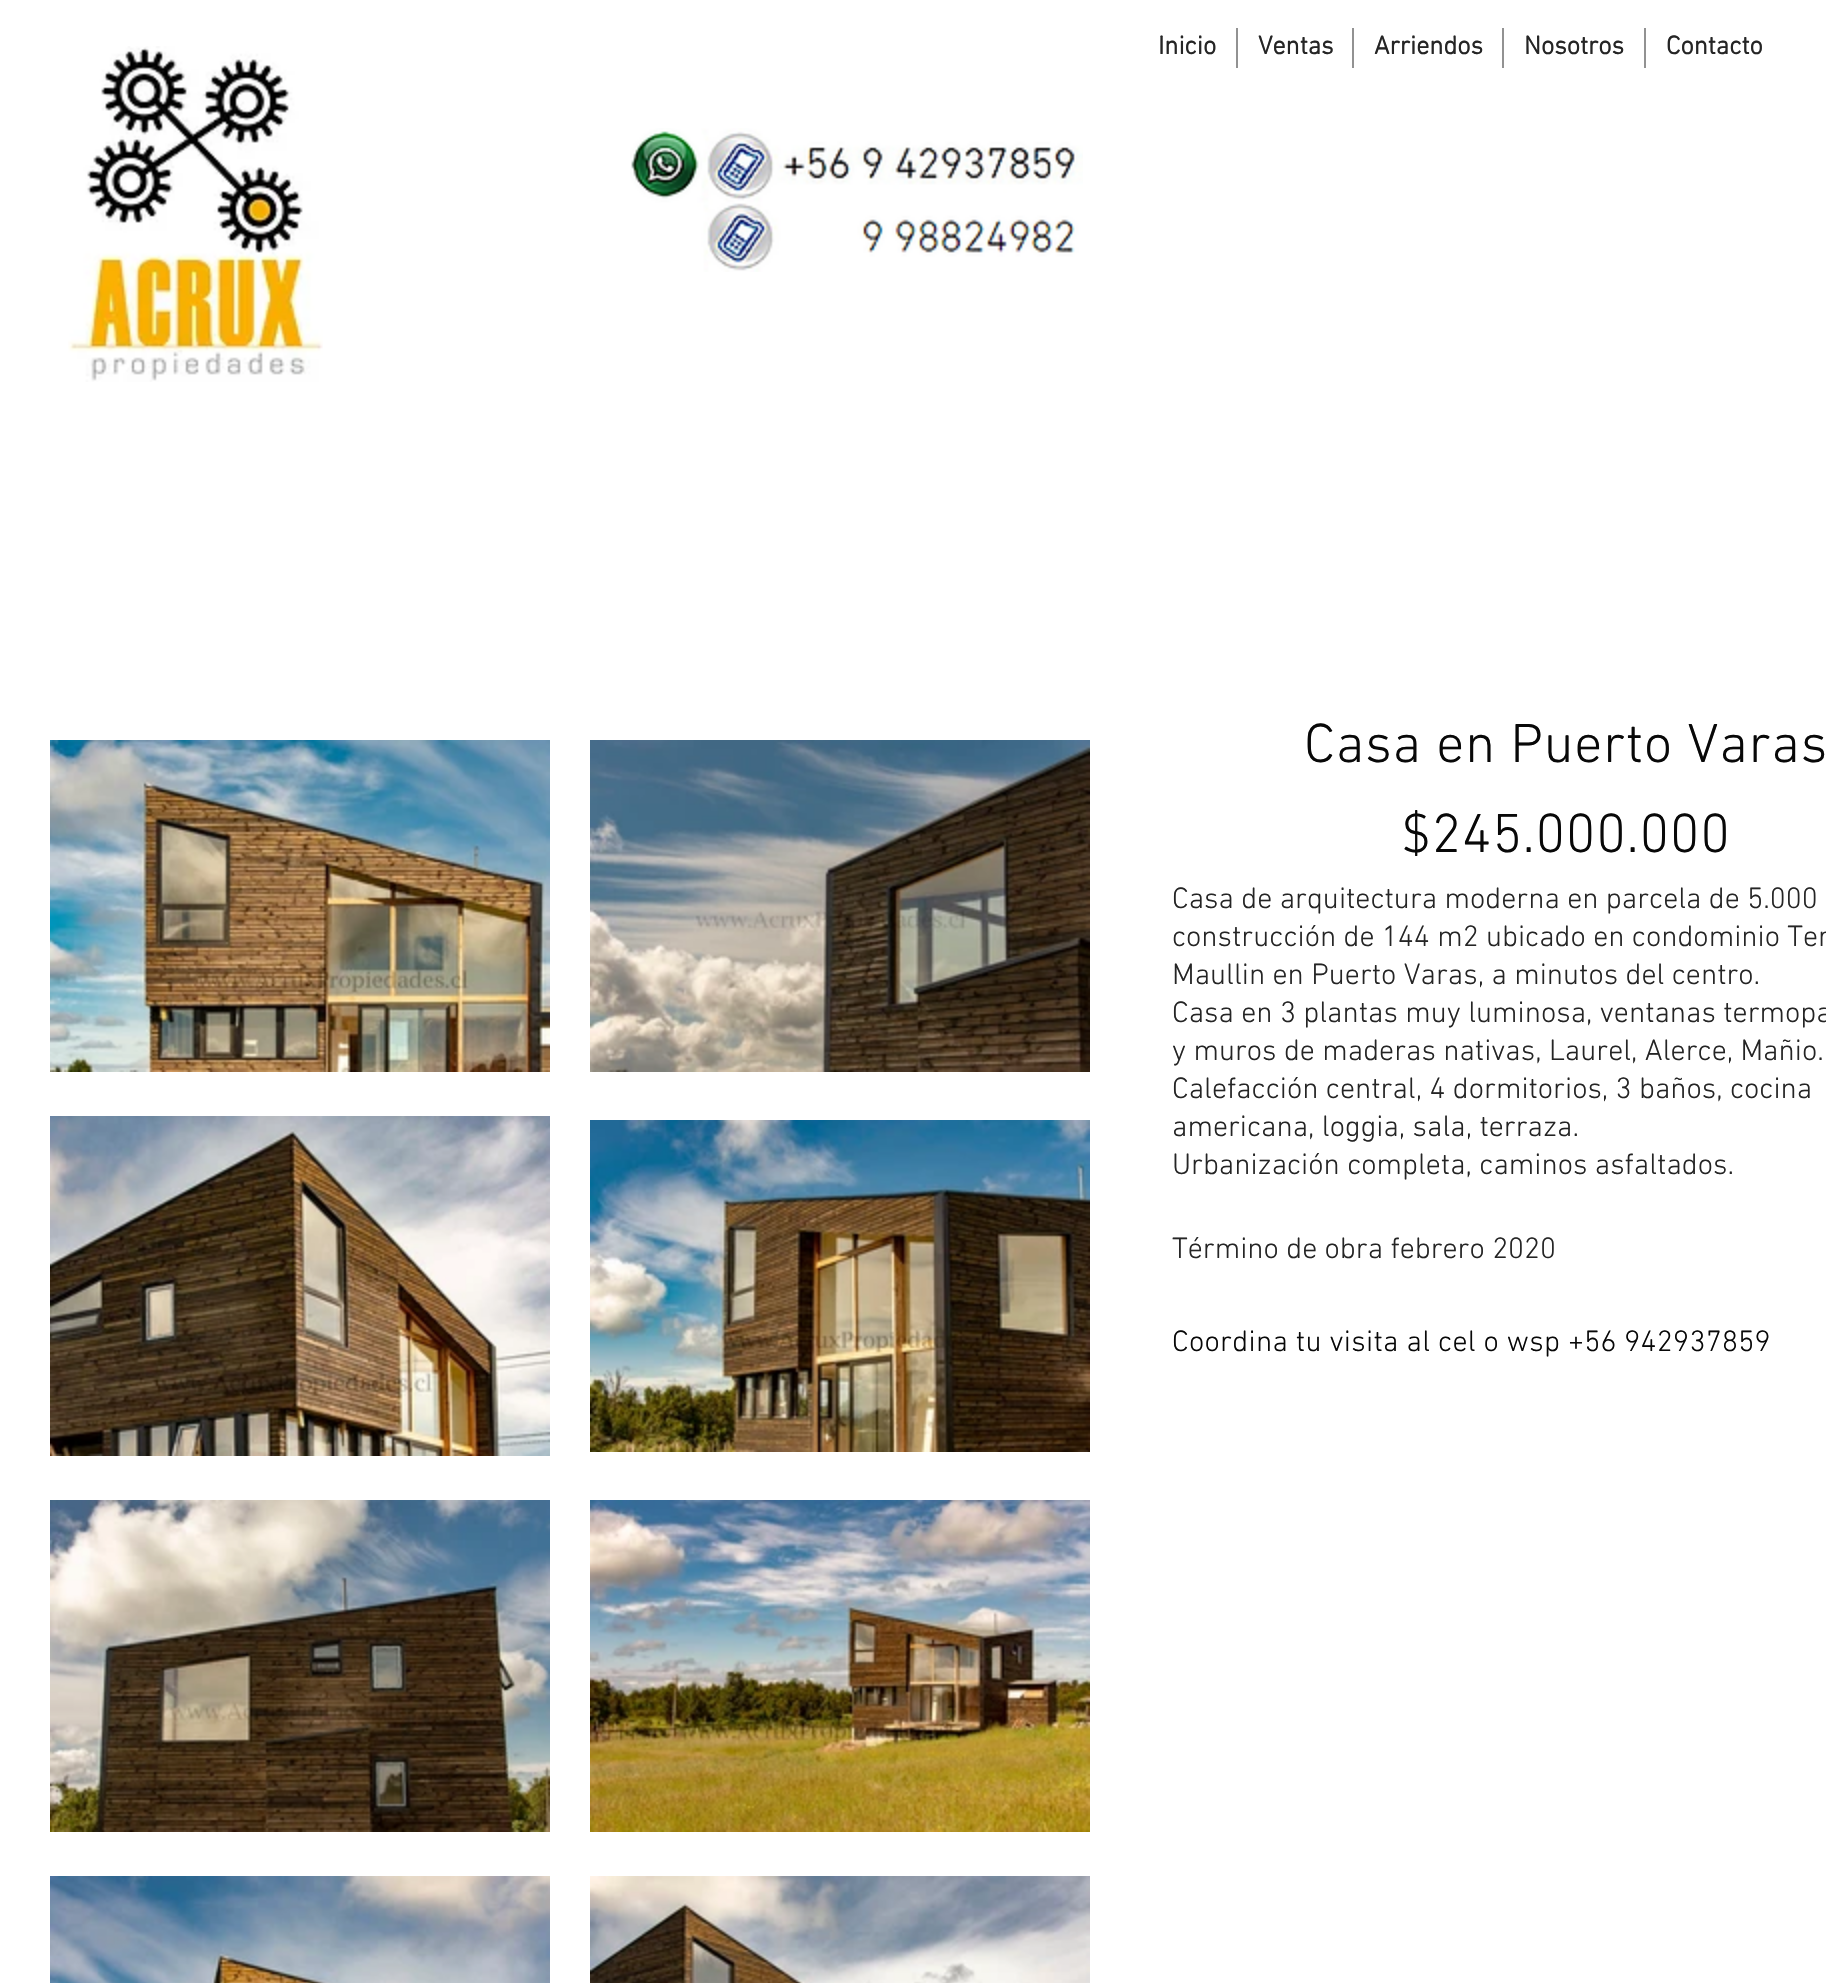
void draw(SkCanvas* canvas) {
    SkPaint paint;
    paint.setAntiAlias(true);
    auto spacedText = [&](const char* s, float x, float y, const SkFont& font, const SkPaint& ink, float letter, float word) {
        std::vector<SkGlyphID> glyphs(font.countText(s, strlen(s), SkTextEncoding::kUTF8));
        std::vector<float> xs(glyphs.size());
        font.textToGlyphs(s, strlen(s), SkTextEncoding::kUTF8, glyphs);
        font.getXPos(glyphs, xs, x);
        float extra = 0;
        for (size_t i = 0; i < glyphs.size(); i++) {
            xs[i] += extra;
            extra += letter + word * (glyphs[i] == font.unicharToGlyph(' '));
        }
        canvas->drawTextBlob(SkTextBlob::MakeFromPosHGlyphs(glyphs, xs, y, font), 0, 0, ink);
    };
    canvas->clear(0xFFFFFFFF);
    SkFont font1(fontMgr->matchFamilyStyle("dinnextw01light", SkFontStyle::Bold()), 26);
    font1.setSubpixel(true);
    paint.setColor(0xFF252525);
    canvas->drawString("Inicio", 1158, 54, font1, paint);
    paint.setColor(0xFF929292);
    canvas->drawRect(SkRect::MakeXYWH(1236, 28, 2, 40), paint);
    paint.setColor(0xFF252525);
    canvas->drawString("Ventas", 1258, 54, font1, paint);
    paint.setColor(0xFF929292);
    canvas->drawRect(SkRect::MakeXYWH(1352, 28, 2, 40), paint);
    paint.setColor(0xFF252525);
    canvas->drawString("Arriendos", 1374, 54, font1, paint);
    paint.setColor(0xFF929292);
    canvas->drawRect(SkRect::MakeXYWH(1502, 28, 2, 40), paint);
    paint.setColor(0xFF252525);
    canvas->drawString("Nosotros", 1524, 54, font1, paint);
    paint.setColor(0xFF929292);
    canvas->drawRect(SkRect::MakeXYWH(1644, 28, 2, 40), paint);
    paint.setColor(0xFF252525);
    canvas->drawString("Contacto", 1666, 54, font1, paint);
    canvas->drawImageRect(SkImages::DeferredFromEncodedData(SkData::MakeFromFileName("img1.png")), SkRect::MakeXYWH(68, 46, 255, 336), SkSamplingOptions());
    canvas->drawImageRect(SkImages::DeferredFromEncodedData(SkData::MakeFromFileName("img2.png")), SkRect::MakeXYWH(630, 128, 453, 144), SkSamplingOptions());
    canvas->drawImageRect(SkImages::DeferredFromEncodedData(SkData::MakeFromFileName("img3.png")), SkRect::MakeXYWH(50, 740, 500, 332), SkSamplingOptions());
    canvas->drawImageRect(SkImages::DeferredFromEncodedData(SkData::MakeFromFileName("img4.png")), SkRect::MakeXYWH(590, 740, 500, 332), SkSamplingOptions());
    canvas->drawImageRect(SkImages::DeferredFromEncodedData(SkData::MakeFromFileName("img5.png")), SkRect::MakeXYWH(50, 1116, 500, 340), SkSamplingOptions());
    canvas->drawImageRect(SkImages::DeferredFromEncodedData(SkData::MakeFromFileName("img6.png")), SkRect::MakeXYWH(590, 1120, 500, 332), SkSamplingOptions());
    canvas->drawImageRect(SkImages::DeferredFromEncodedData(SkData::MakeFromFileName("img7.png")), SkRect::MakeXYWH(50, 1500, 500, 332), SkSamplingOptions());
    canvas->drawImageRect(SkImages::DeferredFromEncodedData(SkData::MakeFromFileName("img8.png")), SkRect::MakeXYWH(590, 1500, 500, 332), SkSamplingOptions());
    canvas->drawImageRect(SkImages::DeferredFromEncodedData(SkData::MakeFromFileName("img9.png")), SkRect::MakeXYWH(50, 1876, 500, 107), SkSamplingOptions());
    canvas->drawImageRect(SkImages::DeferredFromEncodedData(SkData::MakeFromFileName("img10.png")), SkRect::MakeXYWH(590, 1876, 500, 107), SkSamplingOptions());
    SkFont font2(fontMgr->matchFamilyStyle("dinnextw01light", SkFontStyle(300, SkFontStyle::kNormal_Width, SkFontStyle::kUpright_Slant)), 56);
    font2.setSubpixel(true);
    paint.setColor(0xFF080808);
    spacedText("Casa en Puerto Varas", 1304, 762, font2, paint, 0.6f, 0);
    spacedText("$245.000.000", 1401, 852, font2, paint, 0.6f, 0);
    SkFont font3(fontMgr->matchFamilyStyle("dinnextw01light", SkFontStyle(300, SkFontStyle::kNormal_Width, SkFontStyle::kUpright_Slant)), 30);
    font3.setSubpixel(true);
    paint.setColor(0xFF252525);
    canvas->drawString("Casa de arquitectura moderna en parcela de 5.000", 1172, 908, font3, paint);
    canvas->drawString("construcción de 144 m2 ubicado en condominio Ter", 1172, 946, font3, paint);
    canvas->drawString("Maullin en Puerto Varas, a minutos del centro.", 1172, 984, font3, paint);
    canvas->drawString("Casa en 3 plantas muy luminosa, ventanas termopa", 1172, 1022, font3, paint);
    canvas->drawString("y muros de maderas nativas, Laurel, Alerce, Mañio.", 1172, 1060, font3, paint);
    canvas->drawString("Calefacción central, 4 dormitorios, 3 baños, cocina", 1172, 1098, font3, paint);
    canvas->drawString("americana, loggia, sala, terraza.", 1172, 1136, font3, paint);
    canvas->drawString("Urbanización completa, caminos asfaltados.", 1172, 1174, font3, paint);
    canvas->drawString("Término de obra febrero 2020", 1172, 1258, font3, paint);
    paint.setColor(0xFF080808);
    spacedText("Coordina tu visita al cel o wsp +56 942937859", 1172, 1351, font3, paint, 0.3f, 0);
}
